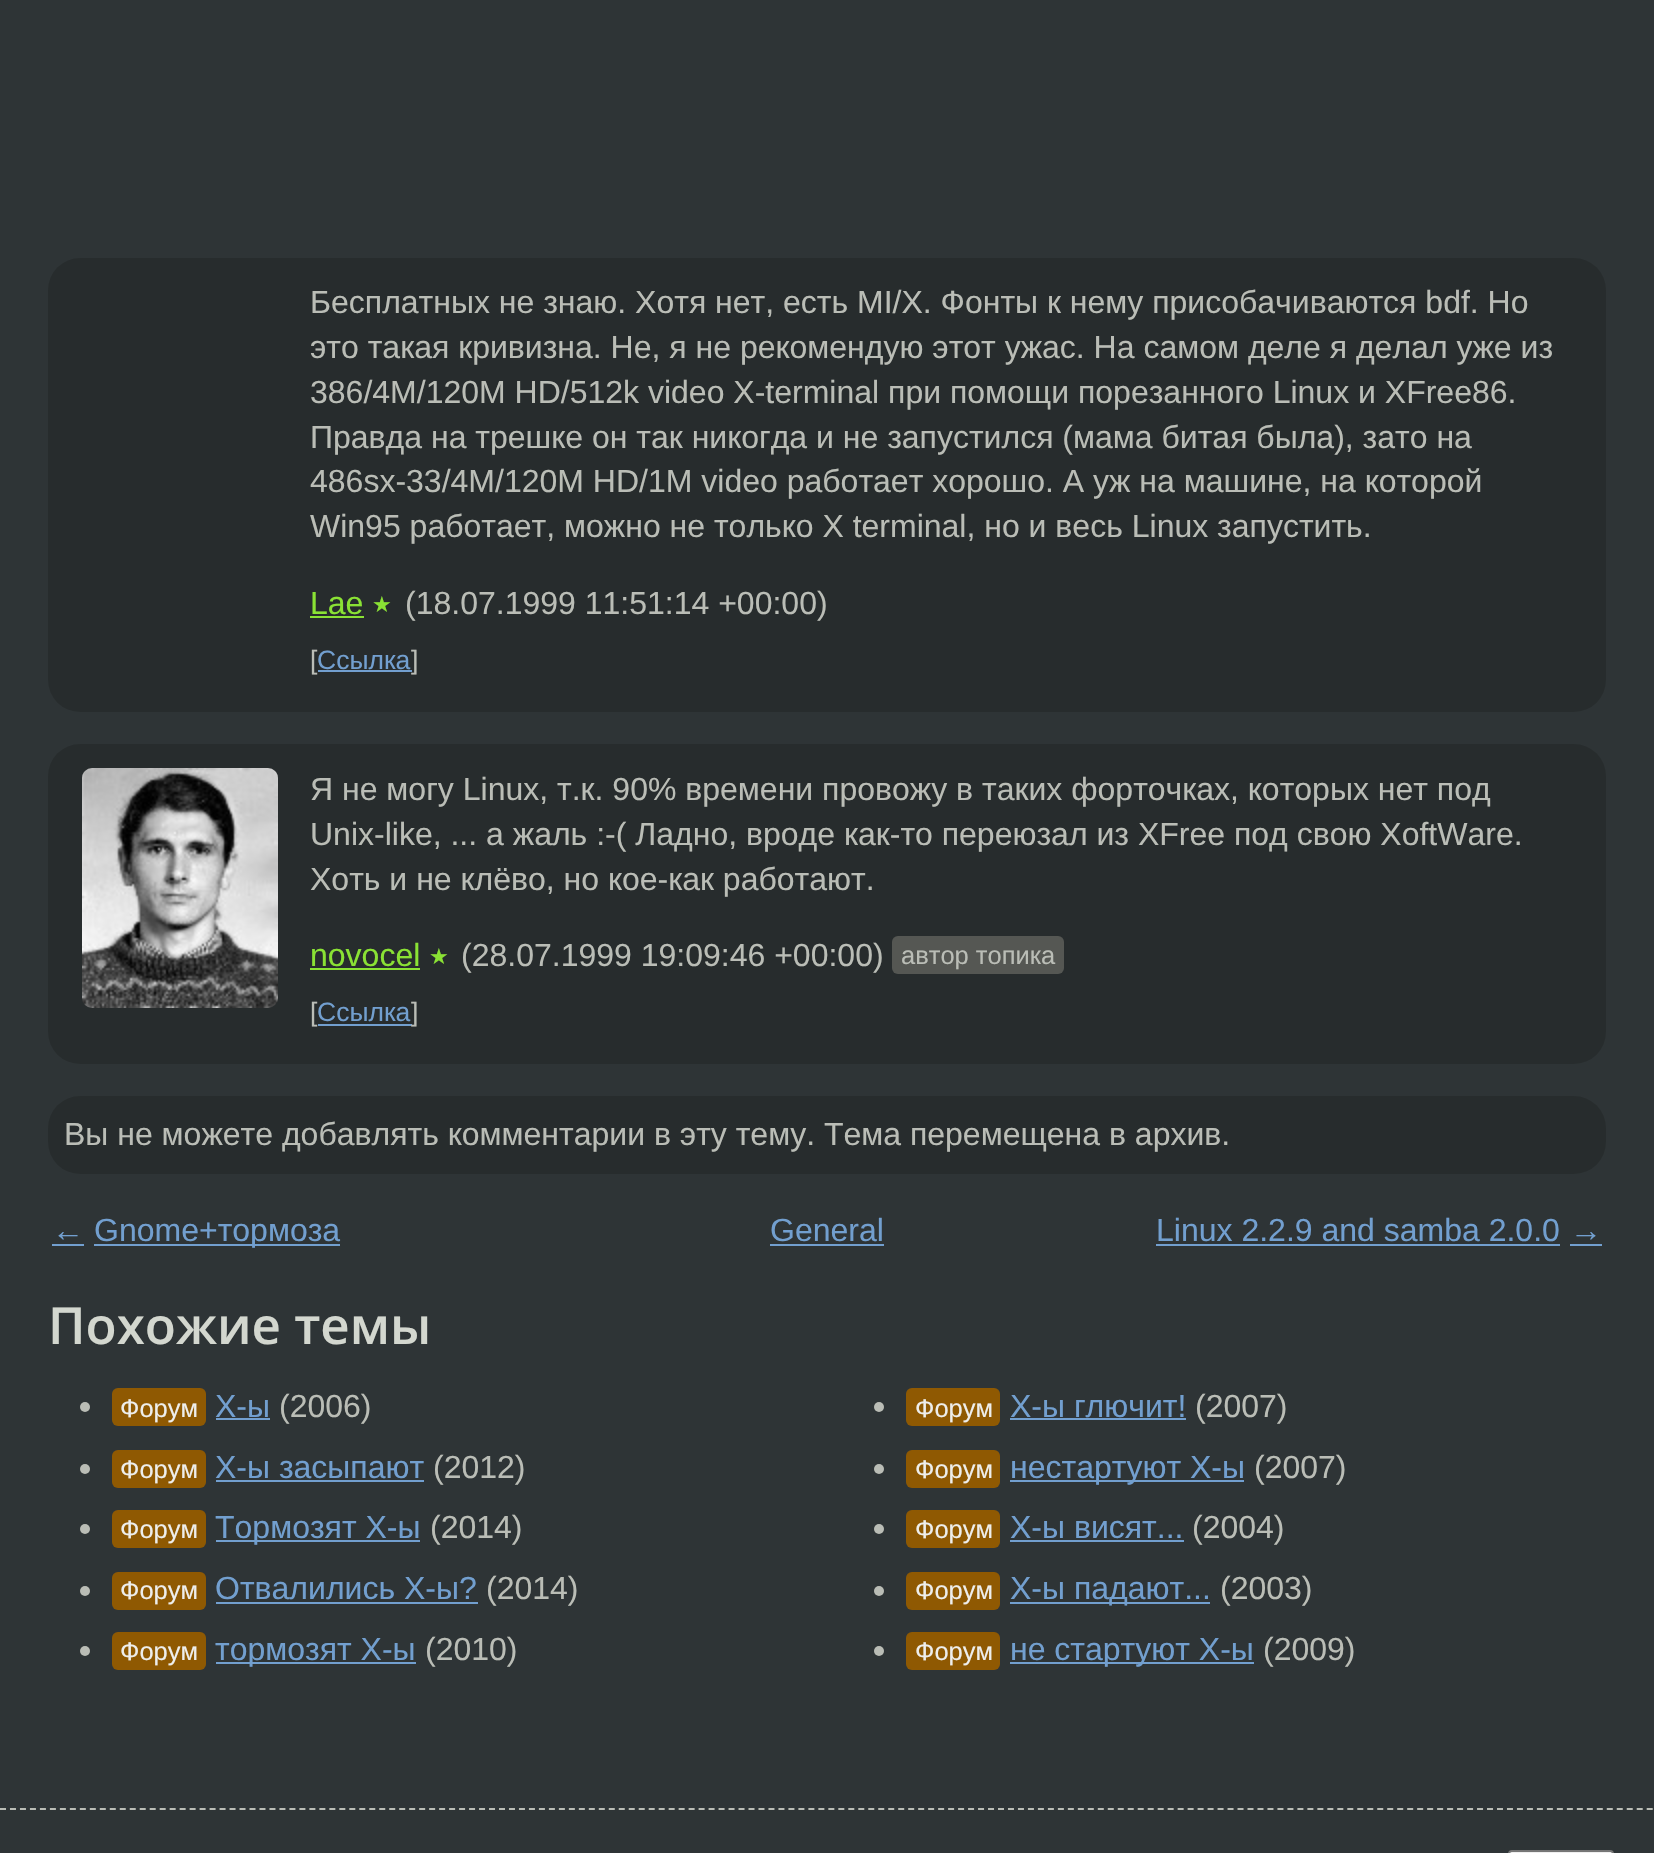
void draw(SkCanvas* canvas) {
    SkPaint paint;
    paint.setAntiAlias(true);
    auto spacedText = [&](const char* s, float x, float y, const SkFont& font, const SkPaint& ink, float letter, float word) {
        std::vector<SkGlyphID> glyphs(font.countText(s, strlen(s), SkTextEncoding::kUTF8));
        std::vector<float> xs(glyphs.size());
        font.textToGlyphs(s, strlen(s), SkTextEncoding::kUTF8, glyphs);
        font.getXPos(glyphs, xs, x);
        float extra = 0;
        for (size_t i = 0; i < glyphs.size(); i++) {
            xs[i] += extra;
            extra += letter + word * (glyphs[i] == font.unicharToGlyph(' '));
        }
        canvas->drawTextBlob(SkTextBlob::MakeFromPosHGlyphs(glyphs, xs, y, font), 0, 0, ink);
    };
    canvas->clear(0xFF2E3436);
    paint.setColor(0xFF272C2D);
    canvas->drawRoundRect(SkRect::MakeXYWH(48, 258, 1558, 454), 32, 32, paint);
    SkFont font1(fontMgr->matchFamilyStyle("Liberation Sans", SkFontStyle::Normal()), 32);
    font1.setSubpixel(true);
    paint.setColor(0xFFBABDB6);
    canvas->drawString("Бесплатных не знаю. Хотя нет, есть MI/X. Фонты к нему присобачиваются bdf. Но", 310, 313, font1, paint);
    canvas->drawString("это такая кривизна. Не, я не рекомендую этот ужас. На самом деле я делал уже из", 310, 358, font1, paint);
    canvas->drawString("386/4M/120M HD/512k video X-terminal при помощи порезанного Linux и XFree86.", 310, 403, font1, paint);
    canvas->drawString("Правда на трешке он так никогда и не запустился (мама битая была), зато на", 310, 448, font1, paint);
    canvas->drawString("486sx-33/4M/120M HD/1M video работает хорошо. А уж на машине, на которой", 310, 492, font1, paint);
    canvas->drawString("Win95 работает, можно не только X terminal, но и весь Linux запустить.", 310, 537, font1, paint);
    paint.setColor(0xFF8AE234);
    canvas->drawString("Lae", 310, 614, font1, paint);
    canvas->drawRect(SkRect::MakeXYWH(310, 616, 54, 2), paint);
    SkFont font2(fontMgr->matchFamilyStyle("DejaVu Sans", SkFontStyle::Normal()), 22);
    font2.setSubpixel(true);
    spacedText("★", 372, 612, font2, paint, 3, 0);
    paint.setColor(0xFFBABDB6);
    canvas->drawString("(18.07.1999 11:51:14 +00:00)", 405, 614, font1, paint);
    SkFont font3(fontMgr->matchFamilyStyle("Liberation Sans", SkFontStyle::Normal()), 26.5f);
    font3.setSubpixel(true);
    canvas->drawString("[", 310, 669, font3, paint);
    paint.setColor(0xFF729FCF);
    canvas->drawRect(SkRect::MakeXYWH(318, 670, 94, 2), paint);
    canvas->drawString("Ссылка", 317, 669, font3, paint);
    paint.setColor(0xFFBABDB6);
    canvas->drawString("]", 411, 669, font3, paint);
    paint.setColor(0xFF272C2D);
    canvas->drawRoundRect(SkRect::MakeXYWH(48, 744, 1558, 320), 32, 32, paint);
    canvas->drawImageRect(SkImages::DeferredFromEncodedData(SkData::MakeFromFileName("img1.png")), SkRect::MakeXYWH(82, 768, 196, 240), SkSamplingOptions());
    paint.setColor(0xFFBABDB6);
    canvas->drawString("Я не могу Linux, т.к. 90% времени провожу в таких форточках, которых нет под", 310, 800, font1, paint);
    canvas->drawString("Unix-like, ... а жаль :-( Ладно, вроде как-то переюзал из XFree под свою XoftWare.", 310, 845, font1, paint);
    canvas->drawString("Xоть и не клёво, но кое-как работают.", 310, 890, font1, paint);
    paint.setColor(0xFF8AE234);
    canvas->drawString("novocel", 310, 966, font1, paint);
    canvas->drawRect(SkRect::MakeXYWH(310, 968, 110, 2), paint);
    spacedText("★", 429, 964, font2, paint, 3, 0);
    paint.setColor(0xFFBABDB6);
    canvas->drawString("(28.07.1999 19:09:46 +00:00)", 461, 966, font1, paint);
    paint.setColor(0xFF555753);
    canvas->drawRoundRect(SkRect::MakeXYWH(892, 936, 172, 38), 6, 6, paint);
    SkFont font4(fontMgr->matchFamilyStyle("Liberation Sans", SkFontStyle::Normal()), 25.5f);
    font4.setSubpixel(true);
    paint.setColor(0xFFBABDB6);
    canvas->drawString("автор топика", 901, 964, font4, paint);
    canvas->drawString("[", 310, 1021, font3, paint);
    paint.setColor(0xFF729FCF);
    canvas->drawRect(SkRect::MakeXYWH(318, 1024, 94, 2), paint);
    canvas->drawString("Ссылка", 317, 1021, font3, paint);
    paint.setColor(0xFFBABDB6);
    canvas->drawString("]", 411, 1021, font3, paint);
    paint.setColor(0xFF272C2D);
    canvas->drawRoundRect(SkRect::MakeXYWH(48, 1096, 1558, 78), 32, 32, paint);
    paint.setColor(0xFFBABDB6);
    canvas->drawString("Вы не можете добавлять комментарии в эту тему. Тема перемещена в архив.", 64, 1145, font1, paint);
    paint.setColor(0xFF729FCF);
    canvas->drawString("←", 52, 1241, font1, paint);
    canvas->drawRect(SkRect::MakeXYWH(52, 1244, 32, 2), paint);
    canvas->drawRect(SkRect::MakeXYWH(94, 1244, 246, 2), paint);
    canvas->drawString("Gnome+тормоза", 94, 1241, font1, paint);
    canvas->drawString("General", 770, 1241, font1, paint);
    canvas->drawRect(SkRect::MakeXYWH(770, 1244, 114, 2), paint);
    canvas->drawString("Linux 2.2.9 and samba 2.0.0", 1156, 1241, font1, paint);
    canvas->drawRect(SkRect::MakeXYWH(1156, 1244, 404, 2), paint);
    canvas->drawString("→", 1570, 1241, font1, paint);
    canvas->drawRect(SkRect::MakeXYWH(1570, 1244, 32, 2), paint);
    SkFont font5(fontMgr->matchFamilyStyle("Open Sans", SkFontStyle(600, SkFontStyle::kNormal_Width, SkFontStyle::kUpright_Slant)), 51);
    font5.setSubpixel(true);
    paint.setColor(0xFFD3D7CF);
    canvas->drawString("Похожие темы", 48, 1344, font5, paint);
    paint.setColor(0xFFBABDB6);
    canvas->drawCircle(85, 1407, 5, paint);
    paint.setColor(0xFF8F5902);
    canvas->drawRoundRect(SkRect::MakeXYWH(112, 1388, 94, 38), 6, 6, paint);
    paint.setColor(0xFFEEEEEC);
    canvas->drawString("Форум", 120, 1417, font4, paint);
    paint.setColor(0xFF729FCF);
    canvas->drawString("X-ы", 215, 1417, font1, paint);
    canvas->drawRect(SkRect::MakeXYWH(216, 1418, 54, 2), paint);
    paint.setColor(0xFFBABDB6);
    canvas->drawString("(2006)", 279, 1417, font1, paint);
    canvas->drawCircle(85, 1469, 5, paint);
    paint.setColor(0xFF8F5902);
    canvas->drawRoundRect(SkRect::MakeXYWH(112, 1450, 94, 38), 6, 6, paint);
    paint.setColor(0xFFEEEEEC);
    canvas->drawString("Форум", 120, 1478, font4, paint);
    paint.setColor(0xFF729FCF);
    canvas->drawString("X-ы засыпают", 215, 1478, font1, paint);
    canvas->drawRect(SkRect::MakeXYWH(216, 1480, 208, 2), paint);
    paint.setColor(0xFFBABDB6);
    canvas->drawString("(2012)", 433, 1478, font1, paint);
    canvas->drawCircle(85, 1529, 5, paint);
    paint.setColor(0xFF8F5902);
    canvas->drawRoundRect(SkRect::MakeXYWH(112, 1510, 94, 38), 6, 6, paint);
    paint.setColor(0xFFEEEEEC);
    canvas->drawString("Форум", 120, 1538, font4, paint);
    paint.setColor(0xFF729FCF);
    canvas->drawRect(SkRect::MakeXYWH(216, 1540, 204, 2), paint);
    canvas->drawString("Тормозят X-ы", 215, 1538, font1, paint);
    paint.setColor(0xFFBABDB6);
    canvas->drawString("(2014)", 430, 1538, font1, paint);
    canvas->drawCircle(85, 1591, 5, paint);
    paint.setColor(0xFF8F5902);
    canvas->drawRoundRect(SkRect::MakeXYWH(112, 1572, 94, 38), 6, 6, paint);
    paint.setColor(0xFFEEEEEC);
    canvas->drawString("Форум", 120, 1599, font4, paint);
    paint.setColor(0xFF729FCF);
    canvas->drawString("Отвалились X-ы?", 215, 1599, font1, paint);
    canvas->drawRect(SkRect::MakeXYWH(216, 1602, 262, 2), paint);
    paint.setColor(0xFFBABDB6);
    canvas->drawString("(2014)", 486, 1599, font1, paint);
    canvas->drawCircle(85, 1651, 5, paint);
    paint.setColor(0xFF8F5902);
    canvas->drawRoundRect(SkRect::MakeXYWH(112, 1632, 94, 38), 6, 6, paint);
    paint.setColor(0xFFEEEEEC);
    canvas->drawString("Форум", 120, 1660, font4, paint);
    paint.setColor(0xFF729FCF);
    canvas->drawRect(SkRect::MakeXYWH(216, 1662, 200, 2), paint);
    canvas->drawString("тормозят X-ы", 215, 1660, font1, paint);
    paint.setColor(0xFFBABDB6);
    canvas->drawString("(2010)", 425, 1660, font1, paint);
    canvas->drawCircle(879, 1407, 5, paint);
    paint.setColor(0xFF8F5902);
    canvas->drawRoundRect(SkRect::MakeXYWH(906, 1388, 94, 38), 6, 6, paint);
    paint.setColor(0xFFEEEEEC);
    canvas->drawString("Форум", 915, 1417, font4, paint);
    paint.setColor(0xFF729FCF);
    canvas->drawString("X-ы глючит!", 1010, 1417, font1, paint);
    canvas->drawRect(SkRect::MakeXYWH(1010, 1418, 176, 2), paint);
    paint.setColor(0xFFBABDB6);
    canvas->drawString("(2007)", 1195, 1417, font1, paint);
    canvas->drawCircle(879, 1469, 5, paint);
    paint.setColor(0xFF8F5902);
    canvas->drawRoundRect(SkRect::MakeXYWH(906, 1450, 94, 38), 6, 6, paint);
    paint.setColor(0xFFEEEEEC);
    canvas->drawString("Форум", 915, 1478, font4, paint);
    paint.setColor(0xFF729FCF);
    canvas->drawRect(SkRect::MakeXYWH(1010, 1480, 234, 2), paint);
    canvas->drawString("нестартуют X-ы", 1010, 1478, font1, paint);
    paint.setColor(0xFFBABDB6);
    canvas->drawString("(2007)", 1254, 1478, font1, paint);
    canvas->drawCircle(879, 1529, 5, paint);
    paint.setColor(0xFF8F5902);
    canvas->drawRoundRect(SkRect::MakeXYWH(906, 1510, 94, 38), 6, 6, paint);
    paint.setColor(0xFFEEEEEC);
    canvas->drawString("Форум", 915, 1538, font4, paint);
    paint.setColor(0xFF729FCF);
    canvas->drawString("X-ы висят...", 1010, 1538, font1, paint);
    canvas->drawRect(SkRect::MakeXYWH(1010, 1540, 174, 2), paint);
    paint.setColor(0xFFBABDB6);
    canvas->drawString("(2004)", 1192, 1538, font1, paint);
    canvas->drawCircle(879, 1591, 5, paint);
    paint.setColor(0xFF8F5902);
    canvas->drawRoundRect(SkRect::MakeXYWH(906, 1572, 94, 38), 6, 6, paint);
    paint.setColor(0xFFEEEEEC);
    canvas->drawString("Форум", 915, 1599, font4, paint);
    paint.setColor(0xFF729FCF);
    canvas->drawRect(SkRect::MakeXYWH(1010, 1602, 200, 2), paint);
    canvas->drawString("X-ы падают...", 1010, 1599, font1, paint);
    paint.setColor(0xFFBABDB6);
    canvas->drawString("(2003)", 1220, 1599, font1, paint);
    canvas->drawCircle(879, 1651, 5, paint);
    paint.setColor(0xFF8F5902);
    canvas->drawRoundRect(SkRect::MakeXYWH(906, 1632, 94, 38), 6, 6, paint);
    paint.setColor(0xFFEEEEEC);
    canvas->drawString("Форум", 915, 1660, font4, paint);
    paint.setColor(0xFF729FCF);
    canvas->drawRect(SkRect::MakeXYWH(1010, 1662, 244, 2), paint);
    canvas->drawString("не стартуют X-ы", 1010, 1660, font1, paint);
    paint.setColor(0xFFBABDB6);
    canvas->drawString("(2009)", 1263, 1660, font1, paint);
    paint.setStyle(SkPaint::kStroke_Style);
    paint.setStrokeWidth(2);
    paint.setPathEffect(SkDashPathEffect::Make({{6, 3.98f}}, 0));
    canvas->drawPath(SkPathBuilder().moveTo(0, 1809).lineTo(1654, 1809).detach(), paint);
    paint.setPathEffect(nullptr);
    paint.setStyle(SkPaint::kFill_Style);
    paint.setColor(0xFFEFEFEF);
    canvas->drawRoundRect(SkRect::MakeXYWH(1509, 1851, 104, 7), 3, 3, paint);
    paint.setStyle(SkPaint::kStroke_Style);
    paint.setColor(0xFF767676);
    canvas->drawRoundRect(SkRect::MakeXYWH(1509, 1851, 104, 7), 3, 3, paint);
}
